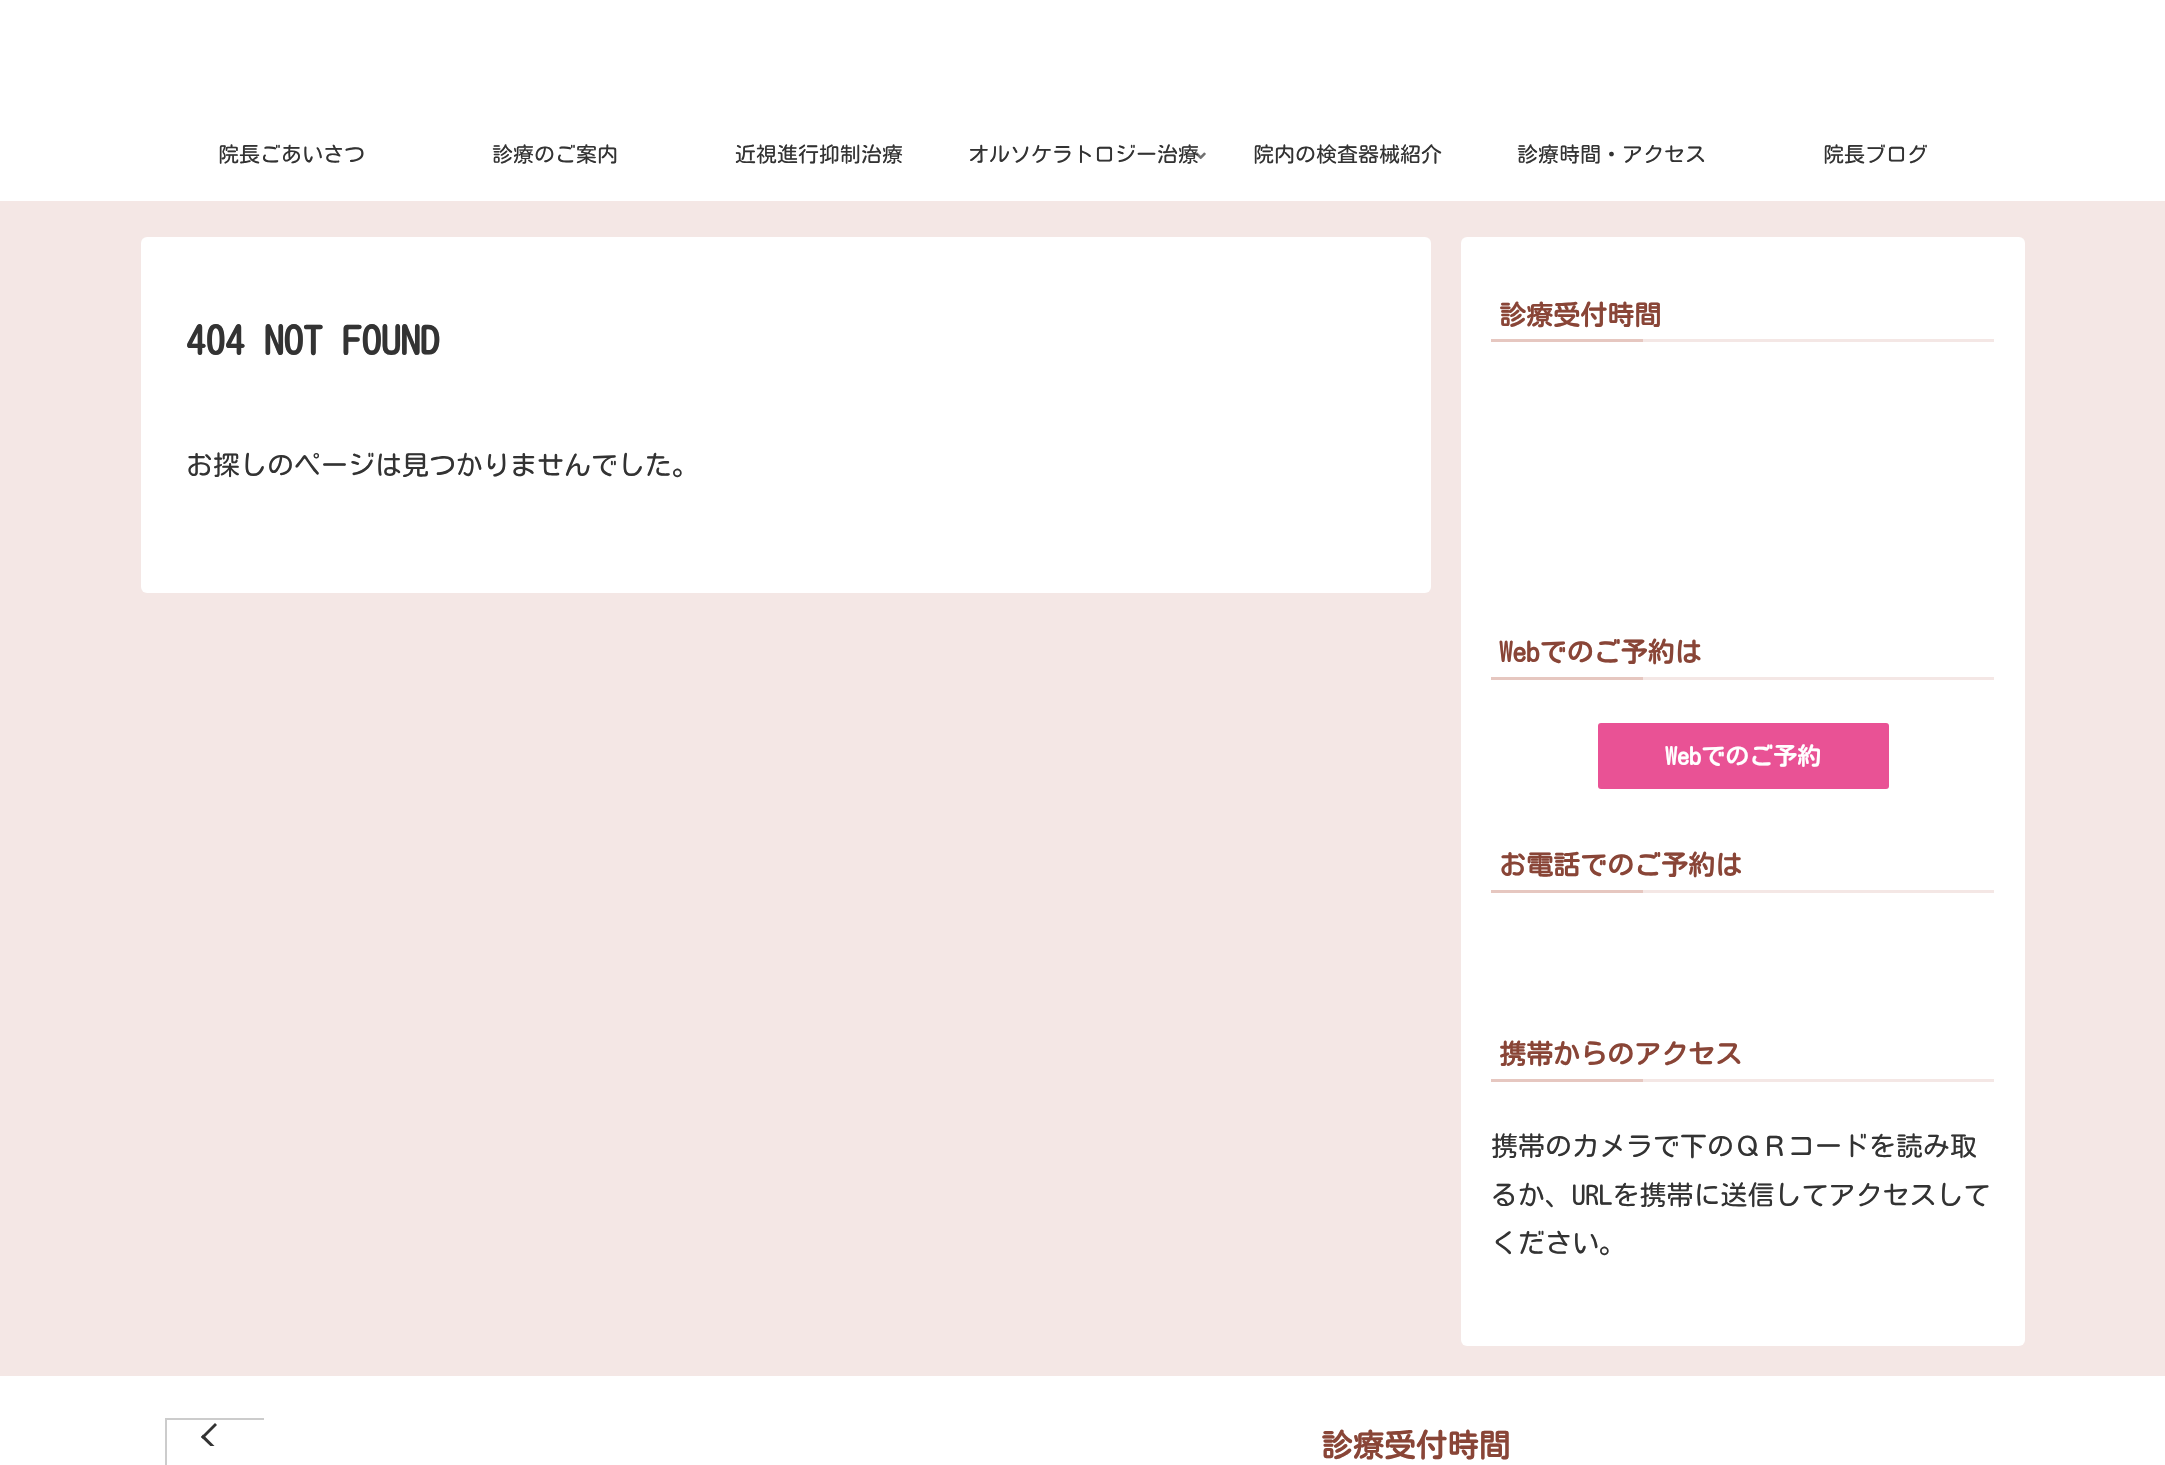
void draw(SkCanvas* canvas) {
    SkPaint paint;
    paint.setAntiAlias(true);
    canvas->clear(0xFFF4E7E5);
    paint.setColor(0xFFFFFFFF);
    canvas->drawRect(SkRect::MakeXYWH(0, 0, 2165, 201), paint);
    SkFont font1(fontMgr->matchFamilyStyle("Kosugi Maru", SkFontStyle::Normal()), 21);
    font1.setSubpixel(true);
    paint.setColor(0xFF333333);
    canvas->drawString("院長ごあいさつ", 218, 162, font1, paint);
    canvas->drawString("診療のご案内", 492, 162, font1, paint);
    canvas->drawString("近視進行抑制治療", 735, 162, font1, paint);
    canvas->drawString("オルソケラトロジー治療", 968, 162, font1, paint);
    canvas->drawImageRect(SkImages::DeferredFromEncodedData(SkData::MakeFromFileName("img1.png")), SkRect::MakeXYWH(1195, 152, 11, 8), SkSamplingOptions());
    canvas->drawString("院内の検査器械紹介", 1253, 162, font1, paint);
    canvas->drawString("診療時間・アクセス", 1517, 162, font1, paint);
    canvas->drawString("院長ブログ", 1823, 162, font1, paint);
    paint.setColor(0xFFFFFFFF);
    canvas->drawRoundRect(SkRect::MakeXYWH(141, 237, 1290, 356), 6, 6, paint);
    SkFont font2(fontMgr->matchFamilyStyle("Kosugi Maru", SkFontStyle::Bold()), 39);
    font2.setSubpixel(true);
    paint.setColor(0xFF333333);
    canvas->drawString("404 NOT FOUND", 186, 355, font2, paint);
    SkFont font3(fontMgr->matchFamilyStyle("Kosugi Maru", SkFontStyle::Normal()), 27);
    font3.setSubpixel(true);
    canvas->drawString("お探しのページは見つかりませんでした。", 186, 475, font3, paint);
    paint.setColor(0xFFFFFFFF);
    canvas->drawRoundRect(SkRect::MakeXYWH(1461, 237, 564, 1109), 6, 6, paint);
    paint.setColor(0xFFF4E7E5);
    canvas->drawRect(SkRect::MakeXYWH(1643, 339, 351, 3), paint);
    SkFont font4(fontMgr->matchFamilyStyle("Kosugi Maru", SkFontStyle::Bold()), 27);
    font4.setSubpixel(true);
    paint.setColor(0xFF894537);
    canvas->drawString("診療受付時間", 1499, 325, font4, paint);
    paint.setColor(0xFFE6C7C0);
    canvas->drawRect(SkRect::MakeXYWH(1491, 339, 152, 3), paint);
    paint.setColor(0xFFF4E7E5);
    canvas->drawRect(SkRect::MakeXYWH(1643, 677, 351, 3), paint);
    paint.setColor(0xFF894537);
    canvas->drawString("Webでのご予約は", 1499, 662, font4, paint);
    paint.setColor(0xFFE6C7C0);
    canvas->drawRect(SkRect::MakeXYWH(1491, 677, 152, 3), paint);
    paint.setColor(0xFFE95295);
    canvas->drawRoundRect(SkRect::MakeXYWH(1598, 723, 291, 66), 3, 3, paint);
    SkFont font5(fontMgr->matchFamilyStyle("Kosugi Maru", SkFontStyle::Bold()), 24);
    font5.setSubpixel(true);
    paint.setColor(0xFFFFFFFF);
    canvas->drawString("Webでのご予約", 1665, 765, font5, paint);
    paint.setColor(0xFFF4E7E5);
    canvas->drawRect(SkRect::MakeXYWH(1643, 890, 351, 3), paint);
    paint.setColor(0xFF894537);
    canvas->drawString("お電話でのご予約は", 1499, 875, font4, paint);
    paint.setColor(0xFFE6C7C0);
    canvas->drawRect(SkRect::MakeXYWH(1491, 890, 152, 3), paint);
    paint.setColor(0xFFF4E7E5);
    canvas->drawRect(SkRect::MakeXYWH(1643, 1079, 351, 3), paint);
    paint.setColor(0xFF894537);
    canvas->drawString("携帯からのアクセス", 1499, 1064, font4, paint);
    paint.setColor(0xFFE6C7C0);
    canvas->drawRect(SkRect::MakeXYWH(1491, 1079, 152, 3), paint);
    paint.setColor(0xFF333333);
    canvas->drawString("携帯のカメラで下のＱＲコードを読み取", 1491, 1156, font3, paint);
    canvas->drawString("るか、URLを携帯に送信してアクセスして", 1491, 1205, font3, paint);
    canvas->drawString("ください。", 1491, 1253, font3, paint);
    paint.setColor(0xFFFFFFFF);
    canvas->drawRect(SkRect::MakeXYWH(0, 1376, 2165, 89), paint);
    paint.setColor(0xFFCCCCCC);
    canvas->drawRect(SkRect::MakeXYWH(165, 1418, 99, 2), paint);
    canvas->drawRect(SkRect::MakeXYWH(165, 1418, 2, 47), paint);
    canvas->save();
    canvas->clipRect(SkRect::MakeXYWH(186, 1424, 57, 22));
    paint.setColor(0xFF333333);
    canvas->drawPath(SkPathBuilder().moveTo(203, 1434.5f).lineTo(217, 1448.5f).lineTo(215, 1450.5f).lineTo(201, 1437).close().detach(), paint);
    canvas->restore();
    canvas->drawPath(SkPathBuilder().moveTo(215, 1423).lineTo(217, 1425).lineTo(203, 1439).lineTo(201, 1437).close().detach(), paint);
    SkFont font6(fontMgr->matchFamilyStyle("Kosugi Maru", SkFontStyle::Bold()), 31.5f);
    font6.setSubpixel(true);
    paint.setColor(0xFF894537);
    canvas->drawString("診療受付時間", 1321, 1457, font6, paint);
}
